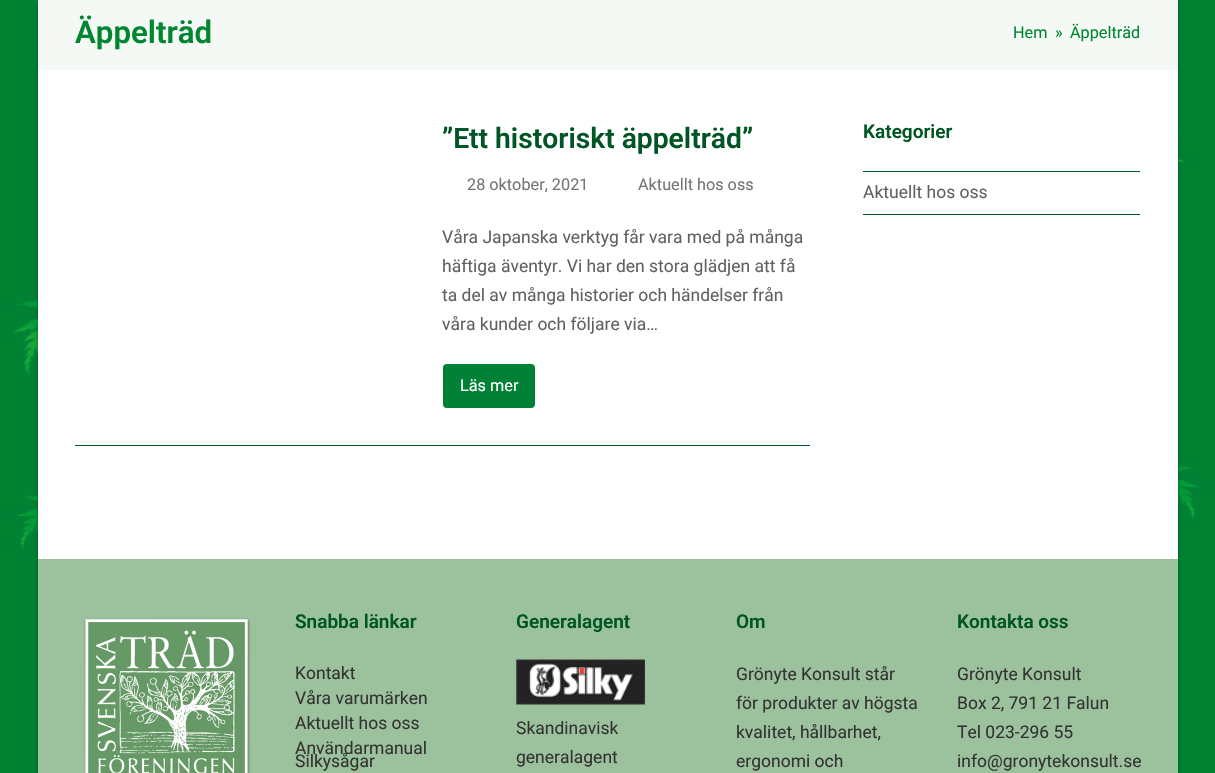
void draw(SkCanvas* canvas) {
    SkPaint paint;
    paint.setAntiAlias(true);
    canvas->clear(0xFFFFFFFF);
    canvas->drawImageRect(SkImages::DeferredFromEncodedData(SkData::MakeFromFileName("img1.png")), SkRect::MakeXYWH(0, 0, 1215, 773), SkSamplingOptions());
    paint.setColor(0x40000000);
    paint.setMaskFilter(SkMaskFilter::MakeBlur(kNormal_SkBlurStyle, 2.5f));
    canvas->drawRect(SkRect::MakeXYWH(38, -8, 1140, 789), paint);
    paint.setMaskFilter(nullptr);
    paint.setColor(0xFFFFFFFF);
    canvas->drawRect(SkRect::MakeXYWH(38, 70, 1140, 489), paint);
    paint.setColor(0xFFF5F9F6);
    canvas->drawRect(SkRect::MakeXYWH(38, 0, 1140, 70), paint);
    SkFont font1(fontMgr->matchFamilyStyle("Roboto", SkFontStyle(600, SkFontStyle::kNormal_Width, SkFontStyle::kUpright_Slant)), 31.25f);
    font1.setSubpixel(true);
    paint.setColor(0xFF008531);
    canvas->drawString("Äppelträd", 75, 43, font1, paint);
    SkFont font2(fontMgr->matchFamilyStyle("Roboto", SkFontStyle::Normal()), 16.25f);
    font2.setSubpixel(true);
    canvas->drawString("Hem", 1013, 38, font2, paint);
    canvas->drawString("»", 1055, 38, font2, paint);
    canvas->drawString("Äppelträd", 1070, 38, font2, paint);
    SkFont font3(fontMgr->matchFamilyStyle("Roboto", SkFontStyle(600, SkFontStyle::kNormal_Width, SkFontStyle::kUpright_Slant)), 28.25f);
    font3.setSubpixel(true);
    paint.setColor(0xFF005525);
    canvas->drawString("”Ett historiskt äppelträd”", 442, 148, font3, paint);
    paint.setColor(0xFF757575);
    canvas->drawString("28 oktober, 2021", 467, 190, font2, paint);
    canvas->drawString("Aktuellt hos oss", 638, 190, font2, paint);
    SkFont font4(fontMgr->matchFamilyStyle("Roboto", SkFontStyle::Normal()), 17.5f);
    font4.setSubpixel(true);
    paint.setColor(0xFF616161);
    canvas->drawString("Våra Japanska verktyg får vara med på många", 442, 243, font4, paint);
    canvas->drawString("häftiga äventyr. Vi har den stora glädjen att få", 442, 272, font4, paint);
    canvas->drawString("ta del av många historier och händelser från", 442, 301, font4, paint);
    canvas->drawString("våra kunder och följare via…", 442, 330, font4, paint);
    paint.setColor(0xFF008135);
    canvas->drawRoundRect(SkRect::MakeXYWH(443, 364, 92, 44), 4, 4, paint);
    paint.setColor(0xFFFFFFFF);
    canvas->drawString("Läs mer", 460, 391, font2, paint);
    paint.setColor(0xFF005525);
    canvas->drawRect(SkRect::MakeXYWH(75, 445, 735, 1), paint);
    SkFont font5(fontMgr->matchFamilyStyle("Roboto", SkFontStyle(600, SkFontStyle::kNormal_Width, SkFontStyle::kUpright_Slant)), 19);
    font5.setSubpixel(true);
    canvas->drawString("Kategorier", 863, 138, font5, paint);
    canvas->drawRect(SkRect::MakeXYWH(863, 171, 277, 1), paint);
    canvas->drawRect(SkRect::MakeXYWH(863, 214, 277, 1), paint);
    paint.setColor(0xFF616161);
    canvas->drawString("Aktuellt hos oss", 863, 198, font4, paint);
    paint.setColor(0xFF9CC29D);
    canvas->drawRect(SkRect::MakeXYWH(38, 559, 1140, 214), paint);
    canvas->drawImageRect(SkImages::DeferredFromEncodedData(SkData::MakeFromFileName("img2.png")), SkRect::MakeXYWH(84, 618, 167, 155), SkSamplingOptions());
    paint.setColor(0xFF005525);
    canvas->drawString("Snabba länkar", 295, 628, font5, paint);
    paint.setColor(0xFF333333);
    canvas->drawString("Kontakt", 295, 679, font4, paint);
    canvas->drawString("Våra varumärken", 295, 704, font4, paint);
    canvas->drawString("Aktuellt hos oss", 295, 729, font4, paint);
    canvas->drawString("Användarmanual", 295, 754, font4, paint);
    canvas->drawString("Silkysågar", 295, 767, font4, paint);
    paint.setColor(0xFF005525);
    canvas->drawString("Generalagent", 516, 628, font5, paint);
    canvas->drawImageRect(SkImages::DeferredFromEncodedData(SkData::MakeFromFileName("img3.png")), SkRect::MakeXYWH(516, 659, 129, 46), SkSamplingOptions());
    paint.setColor(0xFF333333);
    canvas->drawString("Skandinavisk", 516, 734, font4, paint);
    canvas->drawString("generalagent", 516, 763, font4, paint);
    paint.setColor(0xFF005525);
    canvas->drawString("Om", 736, 628, font5, paint);
    paint.setColor(0xFF333333);
    canvas->drawString("Grönyte Konsult står", 736, 680, font4, paint);
    canvas->drawString("för produkter av högsta", 736, 709, font4, paint);
    canvas->drawString("kvalitet, hållbarhet,", 736, 738, font4, paint);
    canvas->drawString("ergonomi och", 736, 767, font4, paint);
    paint.setColor(0xFF005525);
    canvas->drawString("Kontakta oss", 957, 628, font5, paint);
    paint.setColor(0xFF333333);
    canvas->drawString("Grönyte Konsult", 957, 680, font4, paint);
    canvas->drawString("Box 2, 791 21 Falun", 957, 709, font4, paint);
    canvas->drawString("Tel 023-296 55", 957, 738, font4, paint);
    canvas->drawString("info@gronytekonsult.se", 957, 767, font4, paint);
}
